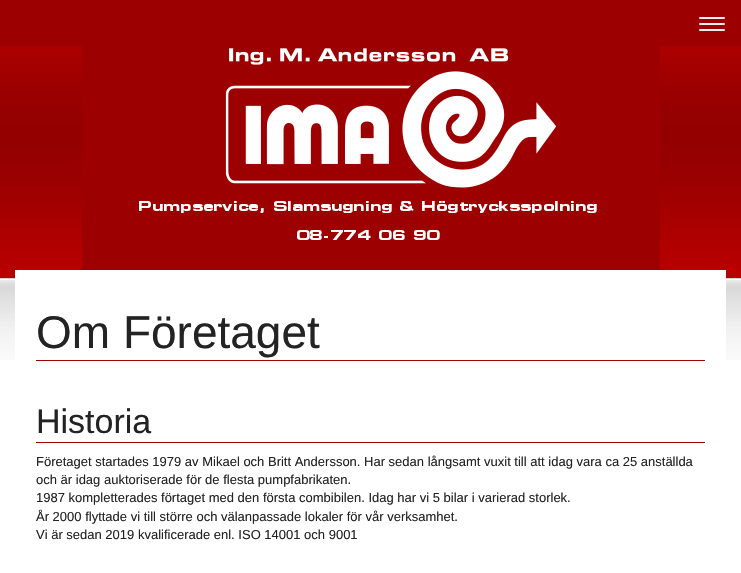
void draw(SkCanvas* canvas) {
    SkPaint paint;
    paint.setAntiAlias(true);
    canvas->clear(0xFFFFFFFF);
    canvas->drawImageRect(SkImages::DeferredFromEncodedData(SkData::MakeFromFileName("img1.png")), SkRect::MakeXYWH(0, 46, 741, 314), SkSamplingOptions());
    paint.setColor(0xFF9C0000);
    canvas->drawRect(SkRect::MakeXYWH(0, 0, 741, 46), paint);
    paint.setColor(0xFFEEEEEE);
    canvas->drawRoundRect(SkRect::MakeXYWH(699, 17, 26, 2), 1, 1, paint);
    canvas->drawRoundRect(SkRect::MakeXYWH(699, 23, 26, 2), 1, 1, paint);
    canvas->drawRoundRect(SkRect::MakeXYWH(699, 29, 26, 2), 1, 1, paint);
    canvas->drawImageRect(SkImages::DeferredFromEncodedData(SkData::MakeFromFileName("img2.png")), SkRect::MakeXYWH(82, 46, 578, 224), SkSamplingOptions());
    paint.setColor(0xFFFFFFFF);
    canvas->drawRect(SkRect::MakeXYWH(15, 270, 711, 90), paint);
    paint.setColor(0xFF9C0000);
    canvas->drawRect(SkRect::MakeXYWH(36, 360, 669, 1), paint);
    SkFont font1(fontMgr->matchFamilyStyle("Liberation Sans", SkFontStyle::Normal()), 46);
    font1.setSubpixel(true);
    paint.setColor(0xFF232323);
    canvas->drawString("Om Företaget", 36, 348, font1, paint);
    paint.setColor(0xFF9C0000);
    canvas->drawRect(SkRect::MakeXYWH(36, 442, 669, 1), paint);
    SkFont font2(fontMgr->matchFamilyStyle("Liberation Sans", SkFontStyle::Normal()), 34);
    font2.setSubpixel(true);
    paint.setColor(0xFF232323);
    canvas->drawString("Historia", 36, 433, font2, paint);
    SkFont font3(fontMgr->matchFamilyStyle("Liberation Sans", SkFontStyle::Normal()), 13);
    font3.setSubpixel(true);
    canvas->drawString("Företaget startades 1979 av Mikael och Britt Andersson. Har sedan långsamt vuxit till att idag vara ca 25 anställda", 36, 466, font3, paint);
    canvas->drawString("och är idag auktoriserade för de flesta pumpfabrikaten.", 36, 484, font3, paint);
    canvas->drawString("1987 kompletterades förtaget med den första combibilen. Idag har vi 5 bilar i varierad storlek.", 36, 502, font3, paint);
    canvas->drawString("År 2000 flyttade vi till större och välanpassade lokaler för vår verksamhet.", 36, 521, font3, paint);
    canvas->drawString("Vi är sedan 2019 kvalificerade enl. ISO 14001 och 9001", 36, 539, font3, paint);
}
